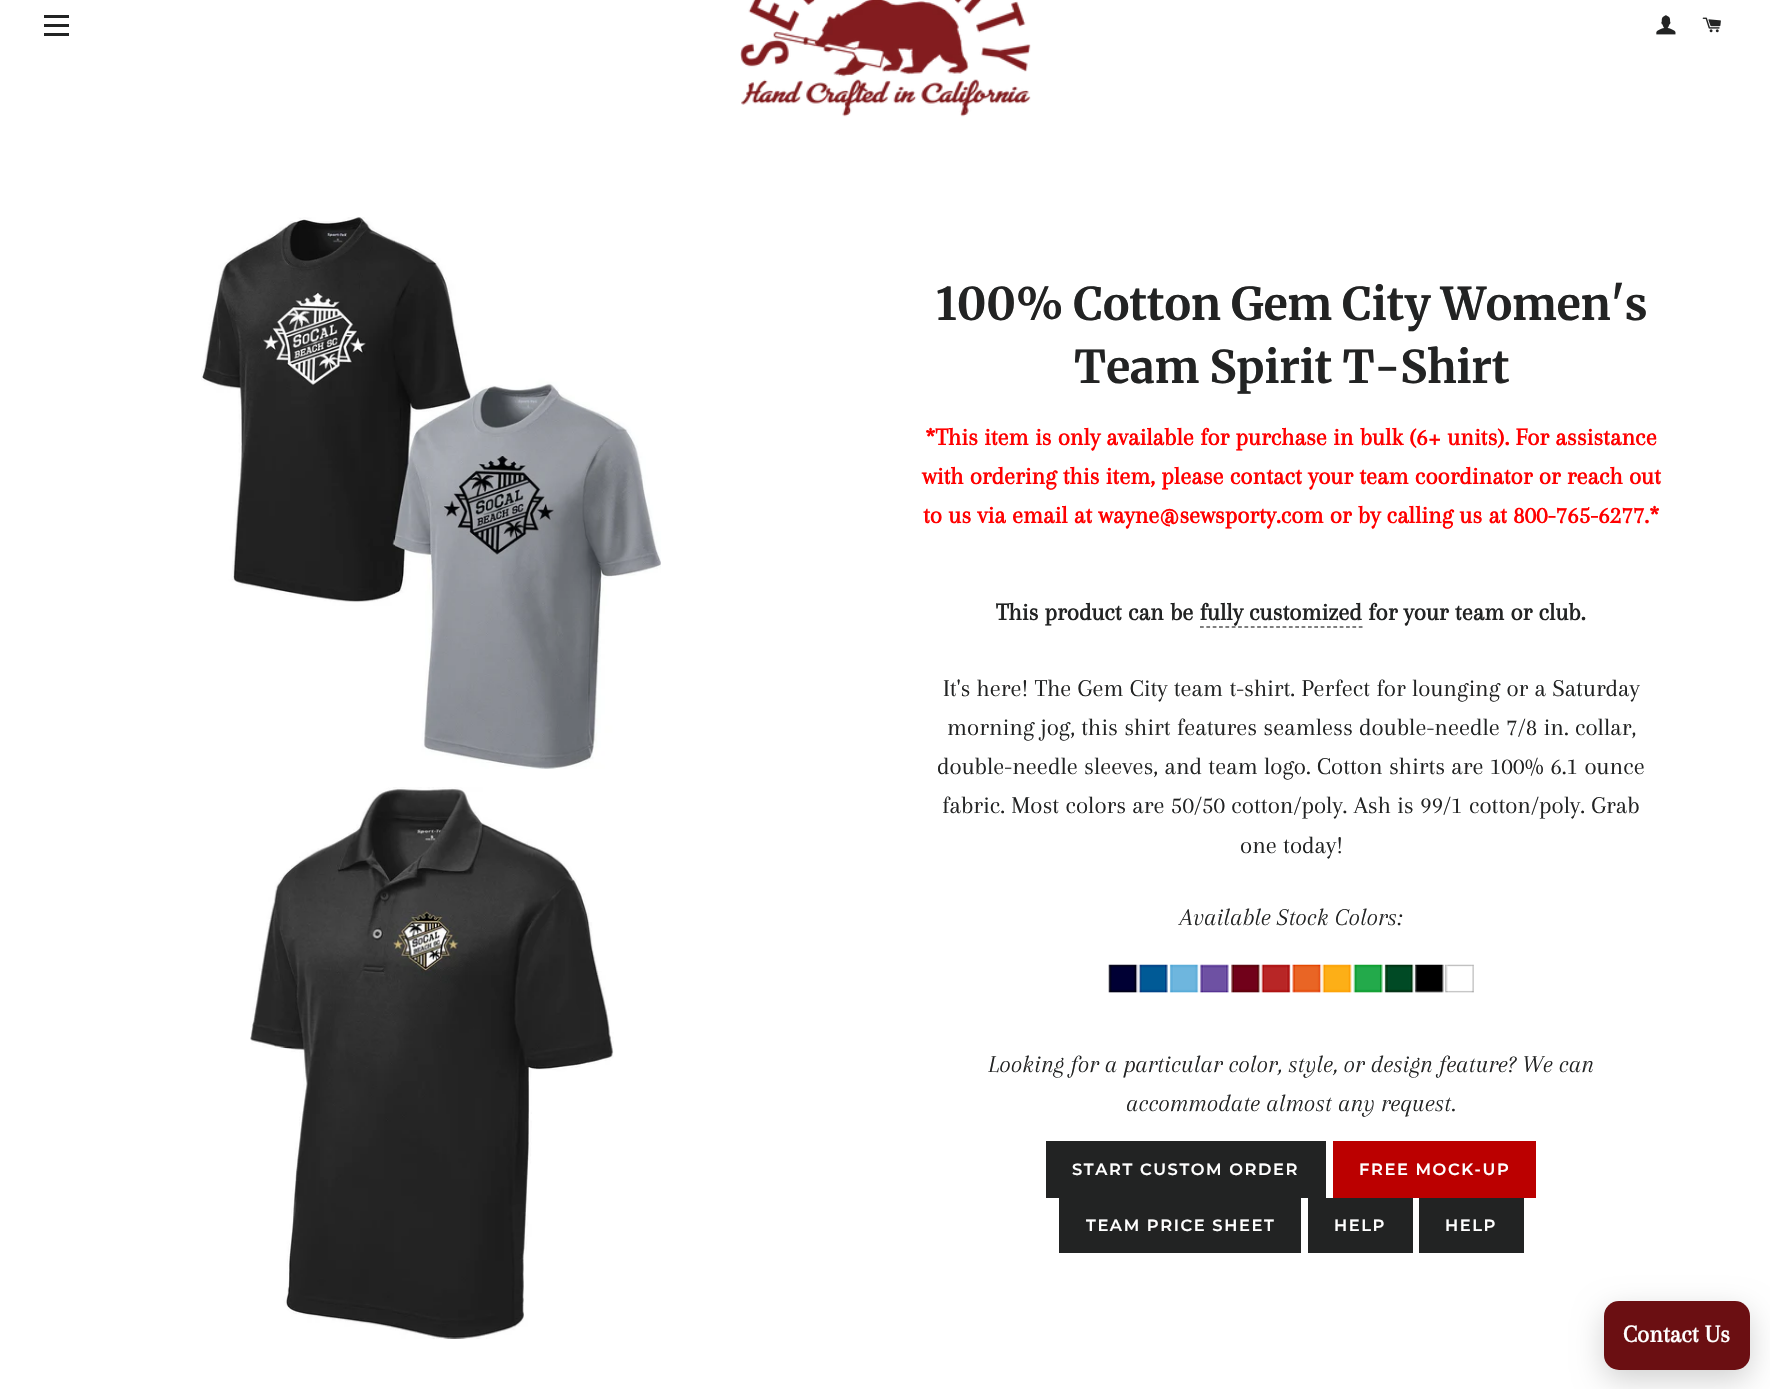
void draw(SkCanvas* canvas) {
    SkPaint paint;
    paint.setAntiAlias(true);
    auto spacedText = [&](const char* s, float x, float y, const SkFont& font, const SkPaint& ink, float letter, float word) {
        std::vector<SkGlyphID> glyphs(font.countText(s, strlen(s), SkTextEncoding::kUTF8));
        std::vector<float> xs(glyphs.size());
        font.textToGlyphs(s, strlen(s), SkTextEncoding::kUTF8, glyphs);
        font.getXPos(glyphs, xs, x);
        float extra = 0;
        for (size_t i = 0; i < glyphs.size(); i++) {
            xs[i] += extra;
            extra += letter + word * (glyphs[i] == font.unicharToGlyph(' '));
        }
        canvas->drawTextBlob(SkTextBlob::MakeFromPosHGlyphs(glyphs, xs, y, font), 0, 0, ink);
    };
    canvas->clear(0xFFFFFFFF);
    paint.setColor(0xFF222323);
    canvas->drawRect(SkRect::MakeXYWH(44, 15, 25, 3), paint);
    canvas->drawRect(SkRect::MakeXYWH(44, 24, 25, 3), paint);
    canvas->drawRect(SkRect::MakeXYWH(44, 33, 25, 3), paint);
    canvas->drawImageRect(SkImages::DeferredFromEncodedData(SkData::MakeFromFileName("img1.png")), SkRect::MakeXYWH(740, 0, 291, 117), SkSamplingOptions());
    canvas->drawImageRect(SkImages::DeferredFromEncodedData(SkData::MakeFromFileName("img2.png")), SkRect::MakeXYWH(1656, 15, 20, 20), SkSamplingOptions());
    canvas->drawImageRect(SkImages::DeferredFromEncodedData(SkData::MakeFromFileName("img3.png")), SkRect::MakeXYWH(1702, 17, 19, 16), SkSamplingOptions());
    canvas->drawImageRect(SkImages::DeferredFromEncodedData(SkData::MakeFromFileName("img4.png")), SkRect::MakeXYWH(201, 217, 460, 552), SkSamplingOptions());
    canvas->drawImageRect(SkImages::DeferredFromEncodedData(SkData::MakeFromFileName("img5.png")), SkRect::MakeXYWH(250, 787, 364, 552), SkSamplingOptions());
    SkFont font1(fontMgr->matchFamilyStyle("Merriweather", SkFontStyle::Bold()), 45);
    font1.setSubpixel(true);
    canvas->drawString("100% Cotton Gem City Women's", 936, 320, font1, paint);
    canvas->drawString("Team Spirit T-Shirt", 1074, 383, font1, paint);
    SkFont font2(fontMgr->matchFamilyStyle("Arapey", SkFontStyle::Bold()), 25);
    font2.setSubpixel(true);
    paint.setColor(0xFFFF0000);
    canvas->drawString("*This item is only available for purchase in bulk (6+ units). For assistance", 925, 445, font2, paint);
    canvas->drawString("with ordering this item, please contact your team coordinator or reach out", 922, 484, font2, paint);
    canvas->drawString("to us via email at wayne@sewsporty.com or by calling us at 800-765-6277.*", 923, 523, font2, paint);
    paint.setColor(0xFF222323);
    canvas->drawString("This product can be fully customized for your team or club.", 996, 620, font2, paint);
    paint.setStyle(SkPaint::kStroke_Style);
    paint.setStrokeWidth(1.2f);
    paint.setColor(0xFF000000);
    paint.setPathEffect(SkDashPathEffect::Make({{3.75f, 2.6f}}, 0));
    canvas->drawPath(SkPathBuilder().moveTo(1200, 627).lineTo(1362.5f, 627).detach(), paint);
    paint.setPathEffect(nullptr);
    SkFont font3(fontMgr->matchFamilyStyle("Arapey", SkFontStyle::Normal()), 25);
    font3.setSubpixel(true);
    paint.setStyle(SkPaint::kFill_Style);
    paint.setColor(0xFF222323);
    canvas->drawString("It's here! The Gem City team t-shirt. Perfect for lounging or a Saturday", 943, 696, font3, paint);
    canvas->drawString("morning jog, this shirt features seamless double-needle 7/8 in. collar,", 947, 735, font3, paint);
    canvas->drawString("double-needle sleeves, and team logo. Cotton shirts are 100% 6.1 ounce", 937, 774, font3, paint);
    canvas->drawString("fabric. Most colors are 50/50 cotton/poly. Ash is 99/1 cotton/poly. Grab", 942, 813, font3, paint);
    canvas->drawString("one today!", 1240, 853, font3, paint);
    SkFont font4(fontMgr->matchFamilyStyle("Arapey", SkFontStyle::Italic()), 25);
    font4.setSubpixel(true);
    canvas->drawString("Available Stock Colors:", 1180, 925, font4, paint);
    canvas->drawImageRect(SkImages::DeferredFromEncodedData(SkData::MakeFromFileName("img6.png")), SkRect::MakeXYWH(1108, 964, 366, 29), SkSamplingOptions());
    canvas->drawString("Looking for a particular color, style, or design feature? We can", 988, 1072, font4, paint);
    canvas->drawString("accommodate almost any request.", 1126, 1111, font4, paint);
    canvas->drawRect(SkRect::MakeXYWH(1046, 1141, 280, 57), paint);
    SkFont font5(fontMgr->matchFamilyStyle("Montserrat", SkFontStyle(600, SkFontStyle::kNormal_Width, SkFontStyle::kUpright_Slant)), 16.25f);
    font5.setSubpixel(true);
    paint.setColor(0xFFFFFFFF);
    spacedText("START CUSTOM ORDER", 1072, 1175, font5, paint, 1.6f, 0);
    paint.setColor(0xFFBB0000);
    canvas->drawRect(SkRect::MakeXYWH(1333, 1141, 203, 57), paint);
    paint.setColor(0xFFFFFFFF);
    spacedText("FREE MOCK-UP", 1359, 1175, font5, paint, 1.6f, 0);
    paint.setColor(0xFF222323);
    canvas->drawRect(SkRect::MakeXYWH(1059, 1198, 242, 55), paint);
    paint.setColor(0xFFFFFFFF);
    spacedText("TEAM PRICE SHEET", 1086, 1231, font5, paint, 1.6f, 0);
    paint.setColor(0xFF222323);
    canvas->drawRect(SkRect::MakeXYWH(1308, 1198, 105, 55), paint);
    paint.setColor(0xFFFFFFFF);
    spacedText("HELP", 1334, 1231, font5, paint, 1.6f, 0);
    paint.setColor(0xFF222323);
    canvas->drawRect(SkRect::MakeXYWH(1419, 1198, 105, 55), paint);
    paint.setColor(0xFFFFFFFF);
    spacedText("HELP", 1445, 1231, font5, paint, 1.6f, 0);
    paint.setColor(0x2E000000);
    paint.setMaskFilter(SkMaskFilter::MakeBlur(kNormal_SkBlurStyle, 15));
    canvas->drawRoundRect(SkRect::MakeXYWH(1604, 1311, 146, 69), 15, 15, paint);
    paint.setMaskFilter(nullptr);
    paint.setColor(0xFF6B0F12);
    canvas->drawRoundRect(SkRect::MakeXYWH(1604, 1301, 146, 69), 15, 15, paint);
    paint.setColor(0xFFFFFFFF);
    canvas->drawString("Contact Us", 1623, 1342, font2, paint);
}
